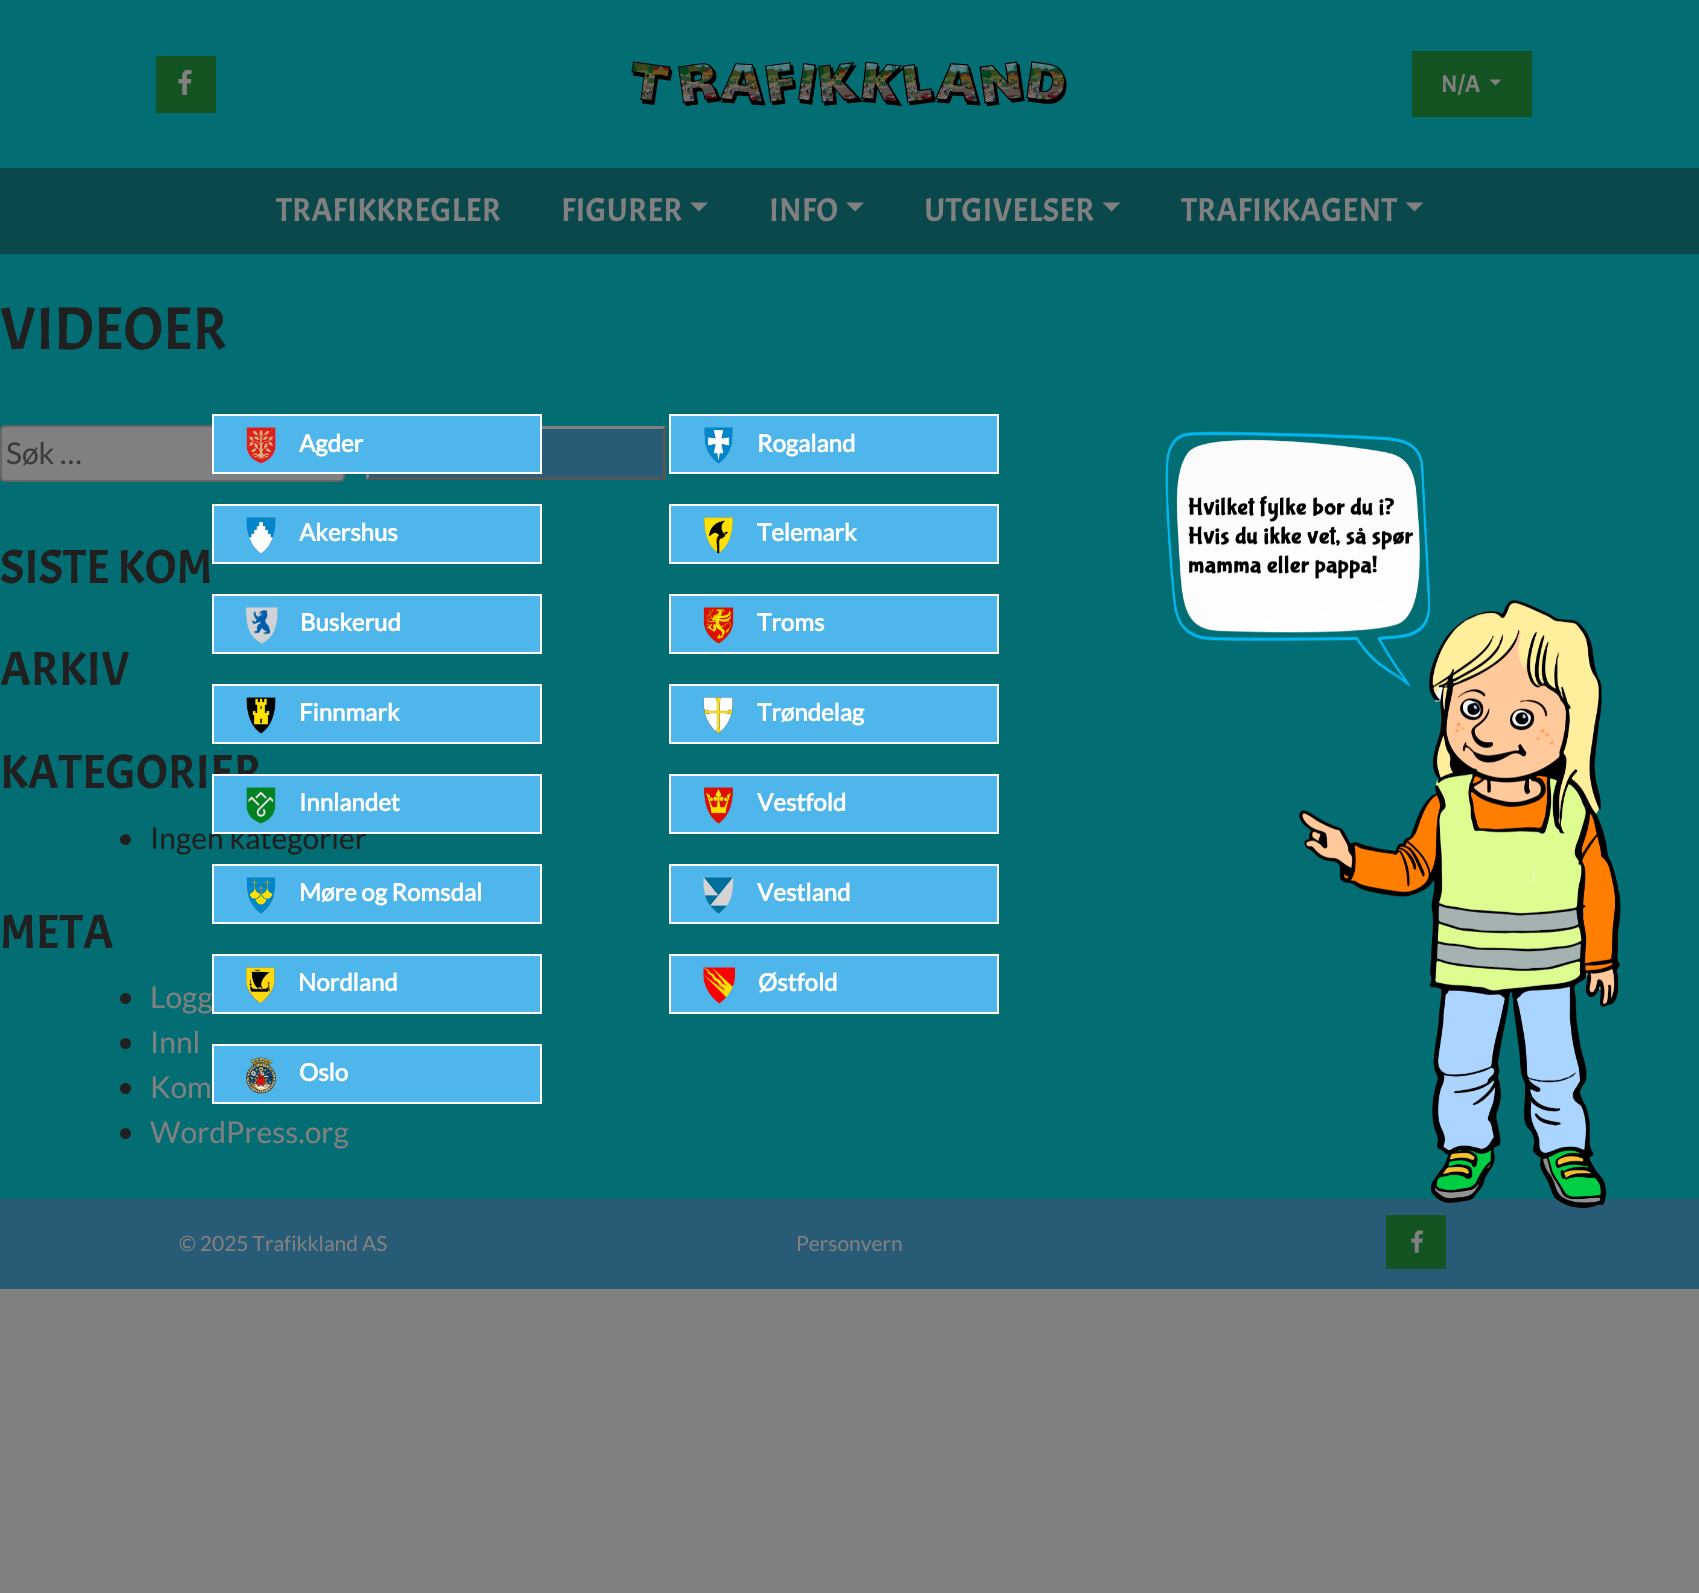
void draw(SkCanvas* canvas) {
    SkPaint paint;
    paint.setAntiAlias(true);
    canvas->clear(0xFF808080);
    paint.setColor(0xFF026D73);
    canvas->drawRect(SkRect::MakeXYWH(0, 0, 1699, 1199), paint);
    paint.setColor(0xFF145423);
    canvas->drawRect(SkRect::MakeXYWH(156, 56, 60, 57), paint);
    canvas->drawImageRect(SkImages::DeferredFromEncodedData(SkData::MakeFromFileName("img1.png")), SkRect::MakeXYWH(178, 69, 14, 26), SkSamplingOptions());
    canvas->drawImageRect(SkImages::DeferredFromEncodedData(SkData::MakeFromFileName("img2.png")), SkRect::MakeXYWH(631, 61, 436, 45), SkSamplingOptions());
    canvas->drawRect(SkRect::MakeXYWH(1412, 51, 120, 66), paint);
    SkFont font1(fontMgr->matchFamilyStyle("Acme", SkFontStyle::Normal()), 24);
    font1.setSubpixel(true);
    paint.setColor(0xFF808080);
    canvas->drawString("N/A", 1441, 92, font1, paint);
    canvas->drawPath(SkPathBuilder().moveTo(1489.5f, 79.5f).lineTo(1501.5f, 79.5f).lineTo(1495.5f, 85.5f).close().detach(), paint);
    paint.setColor(0xFF0A484C);
    canvas->drawRect(SkRect::MakeXYWH(0, 168, 1699, 86), paint);
    SkFont font2(fontMgr->matchFamilyStyle("Acme", SkFontStyle::Normal()), 33);
    font2.setSubpixel(true);
    paint.setColor(0xFF808080);
    canvas->drawString("TRAFIKKREGLER", 276, 221, font2, paint);
    canvas->drawString("FIGURER", 561, 221, font2, paint);
    canvas->drawPath(SkPathBuilder().moveTo(690, 202.5f).lineTo(708, 202.5f).lineTo(699, 211.5f).close().detach(), paint);
    canvas->drawString("INFO", 769, 221, font2, paint);
    canvas->drawPath(SkPathBuilder().moveTo(846, 202.5f).lineTo(864, 202.5f).lineTo(855, 211.5f).close().detach(), paint);
    canvas->drawString("UTGIVELSER", 924, 221, font2, paint);
    canvas->drawPath(SkPathBuilder().moveTo(1102.5f, 202.5f).lineTo(1120.5f, 202.5f).lineTo(1111.5f, 211.5f).close().detach(), paint);
    canvas->drawString("TRAFIKKAGENT", 1181, 221, font2, paint);
    canvas->drawPath(SkPathBuilder().moveTo(1405.5f, 202.5f).lineTo(1423.5f, 202.5f).lineTo(1414.5f, 211.5f).close().detach(), paint);
    SkFont font3(fontMgr->matchFamilyStyle("Acme", SkFontStyle::Normal()), 60);
    font3.setSubpixel(true);
    paint.setColor(0xFF202020);
    canvas->drawString("VIDEOER", 0, 349, font3, paint);
    paint.setColor(0xFF808080);
    canvas->drawRoundRect(SkRect::MakeXYWH(1, 426, 343, 55), 4, 4, paint);
    paint.setStyle(SkPaint::kStroke_Style);
    paint.setStrokeWidth(2);
    paint.setColor(0xFF666666);
    canvas->drawRoundRect(SkRect::MakeXYWH(1, 426, 343, 55), 4, 4, paint);
    SkFont font4(fontMgr->matchFamilyStyle("Lato", SkFontStyle::Normal()), 30);
    font4.setSubpixel(true);
    paint.setStyle(SkPaint::kFill_Style);
    paint.setColor(0xFF3B3B3B);
    canvas->drawString("Søk …", 6, 464, font4, paint);
    paint.setColor(0xFF285B76);
    canvas->drawRect(SkRect::MakeXYWH(366, 426, 300, 54), paint);
    paint.setColor(0xFF808080);
    canvas->drawPath(SkPathBuilder().moveTo(366, 426).lineTo(666, 426).lineTo(663, 429).lineTo(369, 429).close().detach(), paint);
    paint.setColor(0xFF555555);
    canvas->drawPath(SkPathBuilder().moveTo(666, 426).lineTo(666, 480).lineTo(663, 477).lineTo(663, 429).close().detach(), paint);
    canvas->drawPath(SkPathBuilder().moveTo(666, 480).lineTo(366, 480).lineTo(369, 477).lineTo(663, 477).close().detach(), paint);
    paint.setColor(0xFF808080);
    canvas->drawPath(SkPathBuilder().moveTo(366, 480).lineTo(366, 426).lineTo(369, 429).lineTo(369, 477).close().detach(), paint);
    SkFont font5(fontMgr->matchFamilyStyle("Acme", SkFontStyle::Normal()), 48);
    font5.setSubpixel(true);
    paint.setColor(0xFF202020);
    canvas->drawString("SISTE KOM", 0, 583, font5, paint);
    canvas->drawString("ARKIV", 0, 685, font5, paint);
    canvas->drawString("KATEGORIER", 0, 788, font5, paint);
    canvas->drawCircle(125.5f, 839.5f, 5.5f, paint);
    canvas->drawString("Ingen kategorier", 150, 849, font4, paint);
    canvas->drawString("META", 0, 948, font5, paint);
    canvas->drawCircle(125.5f, 998.5f, 5.5f, paint);
    paint.setColor(0xFF808080);
    canvas->drawString("Logg", 150, 1008, font4, paint);
    paint.setColor(0xFF202020);
    canvas->drawCircle(125.5f, 1043.5f, 5.5f, paint);
    paint.setColor(0xFF808080);
    canvas->drawString("Innl", 150, 1053, font4, paint);
    paint.setColor(0xFF202020);
    canvas->drawCircle(125.5f, 1088.5f, 5.5f, paint);
    paint.setColor(0xFF808080);
    canvas->drawString("Kom", 150, 1098, font4, paint);
    paint.setColor(0xFF202020);
    canvas->drawCircle(125.5f, 1133.5f, 5.5f, paint);
    paint.setColor(0xFF808080);
    canvas->drawString("WordPress.org", 150, 1143, font4, paint);
    paint.setColor(0xFF285B76);
    canvas->drawRect(SkRect::MakeXYWH(0, 1199, 1699, 90), paint);
    SkFont font6(fontMgr->matchFamilyStyle("Lato", SkFontStyle::Normal()), 21);
    font6.setSubpixel(true);
    paint.setColor(0xFF808080);
    canvas->drawString("© 2025 Trafikkland AS", 179, 1251, font6, paint);
    canvas->drawString("Personvern", 796, 1251, font6, paint);
    paint.setColor(0xFF145423);
    canvas->drawRect(SkRect::MakeXYWH(1386, 1215, 60, 54), paint);
    canvas->drawImageRect(SkImages::DeferredFromEncodedData(SkData::MakeFromFileName("img3.png")), SkRect::MakeXYWH(1411, 1230, 12, 23), SkSamplingOptions());
    paint.setColor(0xFF4FB6EC);
    canvas->drawRect(SkRect::MakeXYWH(213, 415, 328, 58), paint);
    paint.setStyle(SkPaint::kStroke_Style);
    paint.setColor(0xFFFFFFFF);
    canvas->drawRect(SkRect::MakeXYWH(213, 415, 328, 58), paint);
    canvas->drawImageRect(SkImages::DeferredFromEncodedData(SkData::MakeFromFileName("img4.png")), SkRect::MakeXYWH(246, 427, 30, 37), SkSamplingOptions());
    SkFont font7(fontMgr->matchFamilyStyle("Lato", SkFontStyle::Bold()), 24);
    font7.setSubpixel(true);
    paint.setStyle(SkPaint::kFill_Style);
    canvas->drawString("Agder", 299, 452, font7, paint);
    paint.setColor(0xFF4FB6EC);
    canvas->drawRect(SkRect::MakeXYWH(670, 415, 328, 58), paint);
    paint.setStyle(SkPaint::kStroke_Style);
    paint.setColor(0xFFFFFFFF);
    canvas->drawRect(SkRect::MakeXYWH(670, 415, 328, 58), paint);
    canvas->drawImageRect(SkImages::DeferredFromEncodedData(SkData::MakeFromFileName("img5.png")), SkRect::MakeXYWH(704, 427, 29, 37), SkSamplingOptions());
    paint.setStyle(SkPaint::kFill_Style);
    canvas->drawString("Rogaland", 757, 452, font7, paint);
    paint.setColor(0xFF4FB6EC);
    canvas->drawRect(SkRect::MakeXYWH(213, 505, 328, 58), paint);
    paint.setStyle(SkPaint::kStroke_Style);
    paint.setColor(0xFFFFFFFF);
    canvas->drawRect(SkRect::MakeXYWH(213, 505, 328, 58), paint);
    canvas->drawImageRect(SkImages::DeferredFromEncodedData(SkData::MakeFromFileName("img6.png")), SkRect::MakeXYWH(246, 517, 30, 37), SkSamplingOptions());
    paint.setStyle(SkPaint::kFill_Style);
    canvas->drawString("Akershus", 299, 541, font7, paint);
    paint.setColor(0xFF4FB6EC);
    canvas->drawRect(SkRect::MakeXYWH(670, 505, 328, 58), paint);
    paint.setStyle(SkPaint::kStroke_Style);
    paint.setColor(0xFFFFFFFF);
    canvas->drawRect(SkRect::MakeXYWH(670, 505, 328, 58), paint);
    canvas->drawImageRect(SkImages::DeferredFromEncodedData(SkData::MakeFromFileName("img7.png")), SkRect::MakeXYWH(704, 517, 29, 37), SkSamplingOptions());
    paint.setStyle(SkPaint::kFill_Style);
    canvas->drawString("Telemark", 757, 541, font7, paint);
    paint.setColor(0xFF4FB6EC);
    canvas->drawRect(SkRect::MakeXYWH(213, 595, 328, 58), paint);
    paint.setStyle(SkPaint::kStroke_Style);
    paint.setColor(0xFFFFFFFF);
    canvas->drawRect(SkRect::MakeXYWH(213, 595, 328, 58), paint);
    canvas->drawImageRect(SkImages::DeferredFromEncodedData(SkData::MakeFromFileName("img8.png")), SkRect::MakeXYWH(246, 607, 32, 37), SkSamplingOptions());
    paint.setStyle(SkPaint::kFill_Style);
    canvas->drawString("Buskerud", 300, 631, font7, paint);
    paint.setColor(0xFF4FB6EC);
    canvas->drawRect(SkRect::MakeXYWH(670, 595, 328, 58), paint);
    paint.setStyle(SkPaint::kStroke_Style);
    paint.setColor(0xFFFFFFFF);
    canvas->drawRect(SkRect::MakeXYWH(670, 595, 328, 58), paint);
    canvas->drawImageRect(SkImages::DeferredFromEncodedData(SkData::MakeFromFileName("img9.png")), SkRect::MakeXYWH(703, 607, 31, 37), SkSamplingOptions());
    paint.setStyle(SkPaint::kFill_Style);
    canvas->drawString("Troms", 757, 631, font7, paint);
    paint.setColor(0xFF4FB6EC);
    canvas->drawRect(SkRect::MakeXYWH(213, 685, 328, 58), paint);
    paint.setStyle(SkPaint::kStroke_Style);
    paint.setColor(0xFFFFFFFF);
    canvas->drawRect(SkRect::MakeXYWH(213, 685, 328, 58), paint);
    canvas->drawImageRect(SkImages::DeferredFromEncodedData(SkData::MakeFromFileName("img10.png")), SkRect::MakeXYWH(246, 697, 30, 37), SkSamplingOptions());
    paint.setStyle(SkPaint::kFill_Style);
    canvas->drawString("Finnmark", 299, 721, font7, paint);
    paint.setColor(0xFF4FB6EC);
    canvas->drawRect(SkRect::MakeXYWH(670, 685, 328, 58), paint);
    paint.setStyle(SkPaint::kStroke_Style);
    paint.setColor(0xFFFFFFFF);
    canvas->drawRect(SkRect::MakeXYWH(670, 685, 328, 58), paint);
    canvas->drawImageRect(SkImages::DeferredFromEncodedData(SkData::MakeFromFileName("img11.png")), SkRect::MakeXYWH(703, 697, 30, 37), SkSamplingOptions());
    paint.setStyle(SkPaint::kFill_Style);
    canvas->drawString("Trøndelag", 757, 721, font7, paint);
    paint.setColor(0xFF4FB6EC);
    canvas->drawRect(SkRect::MakeXYWH(213, 775, 328, 58), paint);
    paint.setStyle(SkPaint::kStroke_Style);
    paint.setColor(0xFFFFFFFF);
    canvas->drawRect(SkRect::MakeXYWH(213, 775, 328, 58), paint);
    canvas->drawImageRect(SkImages::DeferredFromEncodedData(SkData::MakeFromFileName("img12.png")), SkRect::MakeXYWH(246, 787, 30, 37), SkSamplingOptions());
    paint.setStyle(SkPaint::kFill_Style);
    canvas->drawString("Innlandet", 299, 811, font7, paint);
    paint.setColor(0xFF4FB6EC);
    canvas->drawRect(SkRect::MakeXYWH(670, 775, 328, 58), paint);
    paint.setStyle(SkPaint::kStroke_Style);
    paint.setColor(0xFFFFFFFF);
    canvas->drawRect(SkRect::MakeXYWH(670, 775, 328, 58), paint);
    canvas->drawImageRect(SkImages::DeferredFromEncodedData(SkData::MakeFromFileName("img13.png")), SkRect::MakeXYWH(704, 787, 29, 37), SkSamplingOptions());
    paint.setStyle(SkPaint::kFill_Style);
    canvas->drawString("Vestfold", 757, 811, font7, paint);
    paint.setColor(0xFF4FB6EC);
    canvas->drawRect(SkRect::MakeXYWH(213, 865, 328, 58), paint);
    paint.setStyle(SkPaint::kStroke_Style);
    paint.setColor(0xFFFFFFFF);
    canvas->drawRect(SkRect::MakeXYWH(213, 865, 328, 58), paint);
    canvas->drawImageRect(SkImages::DeferredFromEncodedData(SkData::MakeFromFileName("img14.png")), SkRect::MakeXYWH(246, 877, 30, 37), SkSamplingOptions());
    paint.setStyle(SkPaint::kFill_Style);
    canvas->drawString("Møre og Romsdal", 299, 901, font7, paint);
    paint.setColor(0xFF4FB6EC);
    canvas->drawRect(SkRect::MakeXYWH(670, 865, 328, 58), paint);
    paint.setStyle(SkPaint::kStroke_Style);
    paint.setColor(0xFFFFFFFF);
    canvas->drawRect(SkRect::MakeXYWH(670, 865, 328, 58), paint);
    canvas->drawImageRect(SkImages::DeferredFromEncodedData(SkData::MakeFromFileName("img15.png")), SkRect::MakeXYWH(703, 877, 31, 37), SkSamplingOptions());
    paint.setStyle(SkPaint::kFill_Style);
    canvas->drawString("Vestland", 757, 901, font7, paint);
    paint.setColor(0xFF4FB6EC);
    canvas->drawRect(SkRect::MakeXYWH(213, 955, 328, 58), paint);
    paint.setStyle(SkPaint::kStroke_Style);
    paint.setColor(0xFFFFFFFF);
    canvas->drawRect(SkRect::MakeXYWH(213, 955, 328, 58), paint);
    canvas->drawImageRect(SkImages::DeferredFromEncodedData(SkData::MakeFromFileName("img16.png")), SkRect::MakeXYWH(246, 967, 29, 37), SkSamplingOptions());
    paint.setStyle(SkPaint::kFill_Style);
    canvas->drawString("Nordland", 298, 991, font7, paint);
    paint.setColor(0xFF4FB6EC);
    canvas->drawRect(SkRect::MakeXYWH(670, 955, 328, 58), paint);
    paint.setStyle(SkPaint::kStroke_Style);
    paint.setColor(0xFFFFFFFF);
    canvas->drawRect(SkRect::MakeXYWH(670, 955, 328, 58), paint);
    canvas->drawImageRect(SkImages::DeferredFromEncodedData(SkData::MakeFromFileName("img17.png")), SkRect::MakeXYWH(703, 967, 32, 37), SkSamplingOptions());
    paint.setStyle(SkPaint::kFill_Style);
    canvas->drawString("Østfold", 758, 991, font7, paint);
    paint.setColor(0xFF4FB6EC);
    canvas->drawRect(SkRect::MakeXYWH(213, 1045, 328, 58), paint);
    paint.setStyle(SkPaint::kStroke_Style);
    paint.setColor(0xFFFFFFFF);
    canvas->drawRect(SkRect::MakeXYWH(213, 1045, 328, 58), paint);
    canvas->drawImageRect(SkImages::DeferredFromEncodedData(SkData::MakeFromFileName("img18.png")), SkRect::MakeXYWH(246, 1057, 30, 37), SkSamplingOptions());
    paint.setStyle(SkPaint::kFill_Style);
    canvas->drawString("Oslo", 299, 1081, font7, paint);
    canvas->drawImageRect(SkImages::DeferredFromEncodedData(SkData::MakeFromFileName("img19.png")), SkRect::MakeXYWH(1165, 431, 456, 777), SkSamplingOptions());
}
